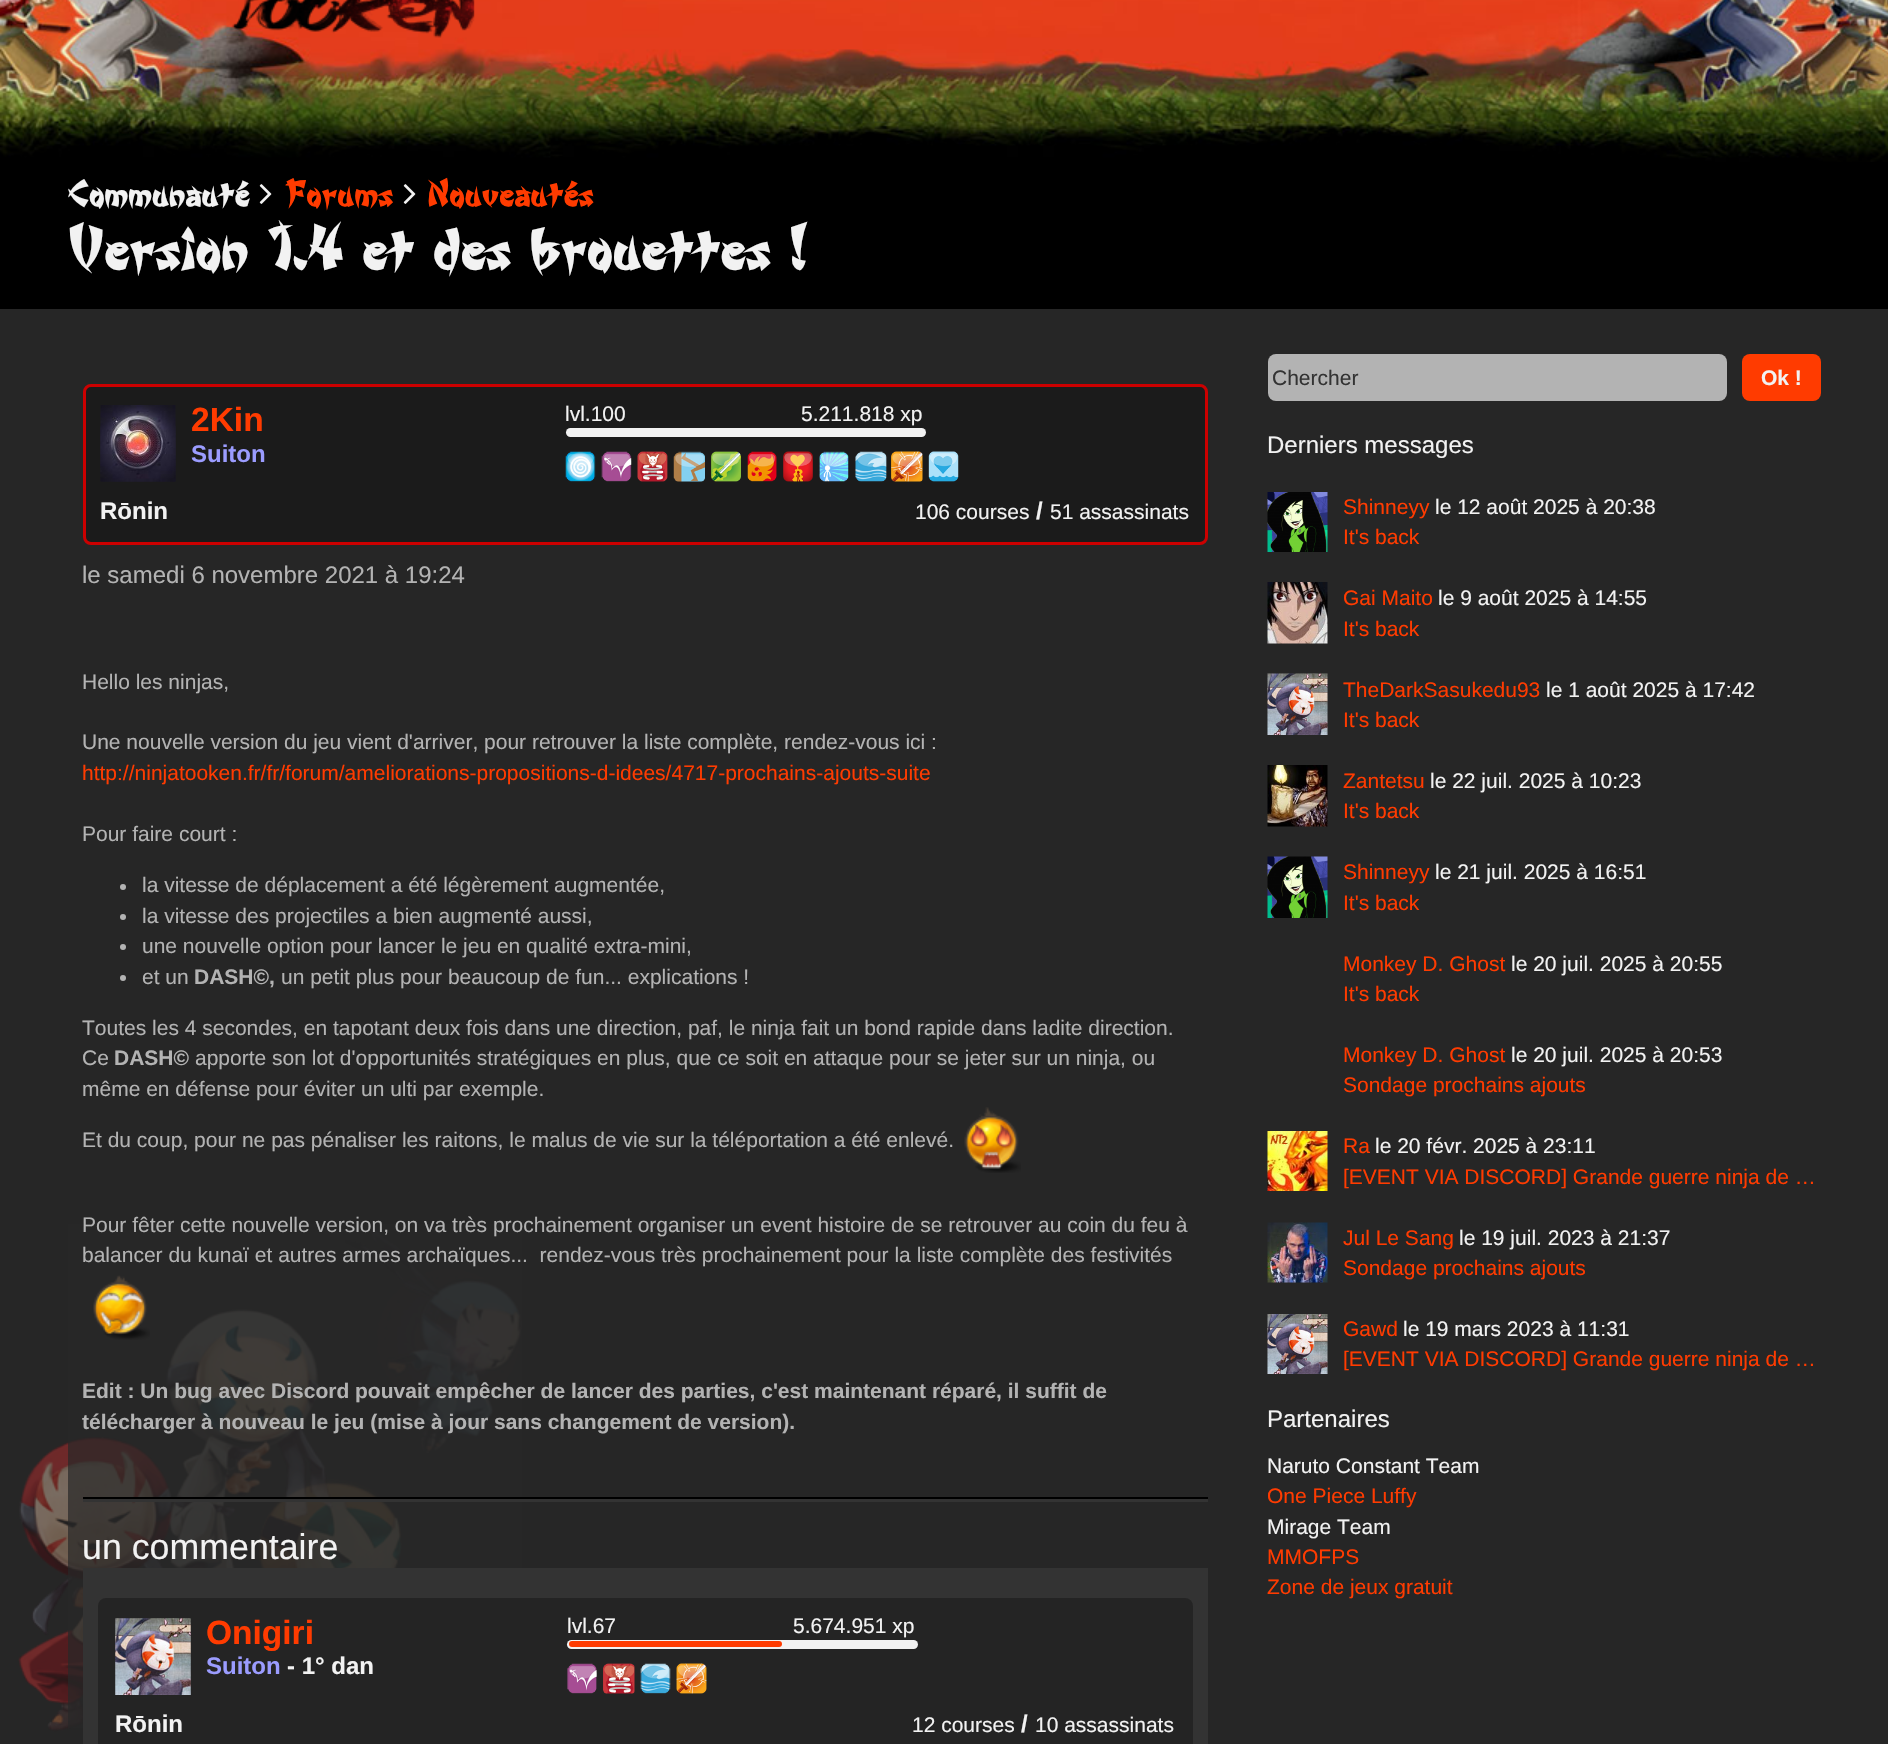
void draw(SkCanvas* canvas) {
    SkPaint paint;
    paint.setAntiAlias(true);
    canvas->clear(0xFF262626);
    canvas->drawImageRect(SkImages::DeferredFromEncodedData(SkData::MakeFromFileName("img1.png")), SkRect::MakeXYWH(0, 0, 1888, 162), SkSamplingOptions());
    canvas->drawImageRect(SkImages::DeferredFromEncodedData(SkData::MakeFromFileName("img2.png")), SkRect::MakeXYWH(232, 0, 243, 38), SkSamplingOptions());
    paint.setColor(0xFF000000);
    canvas->drawRect(SkRect::MakeXYWH(0, 162, 1888, 147), paint);
    SkFont font1(fontMgr->matchFamilyStyle("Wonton", SkFontStyle::Bold()), 35.75f);
    font1.setSubpixel(true);
    paint.setColor(0xFFF2F2F2);
    canvas->drawString("Communauté", 67, 206, font1, paint);
    canvas->drawImageRect(SkImages::DeferredFromEncodedData(SkData::MakeFromFileName("img3.png")), SkRect::MakeXYWH(259, 184, 13, 20), SkSamplingOptions());
    paint.setColor(0xFFFF3B00);
    canvas->drawString("Forums", 284, 206, font1, paint);
    canvas->drawImageRect(SkImages::DeferredFromEncodedData(SkData::MakeFromFileName("img3.png")), SkRect::MakeXYWH(403, 184, 13, 20), SkSamplingOptions());
    canvas->drawString("Nouveautés", 427, 206, font1, paint);
    SkFont font2(fontMgr->matchFamilyStyle("Wonton", SkFontStyle::Bold()), 59.8f);
    font2.setSubpixel(true);
    paint.setColor(0xFFF2F2F2);
    canvas->drawString("Version 1.4 et des brouettes !", 67, 269, font2, paint);
    canvas->drawImageRect(SkImages::DeferredFromEncodedData(SkData::MakeFromFileName("img36.png")), SkRect::MakeXYWH(258, 1479, 144, 89), SkSamplingOptions());
    canvas->drawImageRect(SkImages::DeferredFromEncodedData(SkData::MakeFromFileName("img34.png")), SkRect::MakeXYWH(166, 1309, 167, 259), SkSamplingOptions());
    canvas->drawImageRect(SkImages::DeferredFromEncodedData(SkData::MakeFromFileName("img33.png")), SkRect::MakeXYWH(18, 1437, 155, 295), SkSamplingOptions());
    canvas->drawImageRect(SkImages::DeferredFromEncodedData(SkData::MakeFromFileName("img35.png")), SkRect::MakeXYWH(345, 1224, 177, 229), SkSamplingOptions());
    paint.setColor(0xB3262626);
    canvas->drawRect(SkRect::MakeXYWH(68, 1224, 454, 504), paint);
    paint.setColor(0xFF1B1B1B);
    canvas->drawRoundRect(SkRect::MakeXYWH(84.5f, 385.5f, 1122, 158), 6.5f, 6.5f, paint);
    paint.setStyle(SkPaint::kStroke_Style);
    paint.setStrokeWidth(3);
    paint.setColor(0xFFCC0000);
    canvas->drawRoundRect(SkRect::MakeXYWH(84.5f, 385.5f, 1122, 158), 6.5f, 6.5f, paint);
    canvas->drawImageRect(SkImages::DeferredFromEncodedData(SkData::MakeFromFileName("img4.png")), SkRect::MakeXYWH(100, 405, 76, 77), SkSamplingOptions());
    canvas->drawImageRect(SkImages::DeferredFromEncodedData(SkData::MakeFromFileName("img5.png")), SkRect::MakeXYWH(100, 426, 76, 56), SkSamplingOptions());
    SkFont font3(fontMgr->matchFamilyStyle("Liberation Sans", SkFontStyle::Bold()), 33.5f);
    font3.setSubpixel(true);
    paint.setStyle(SkPaint::kFill_Style);
    paint.setColor(0xFFFF3B00);
    canvas->drawString("2Kin", 191, 431, font3, paint);
    SkFont font4(fontMgr->matchFamilyStyle("Liberation Sans", SkFontStyle::Bold()), 24);
    font4.setSubpixel(true);
    paint.setColor(0xFF9B9CFF);
    canvas->drawString("Suiton", 191, 462, font4, paint);
    SkFont font5(fontMgr->matchFamilyStyle("Liberation Sans", SkFontStyle::Normal()), 21);
    font5.setSubpixel(true);
    paint.setColor(0xFFF2F2F2);
    canvas->drawString("lvl.100", 565, 421, font5, paint);
    canvas->drawString("5.211.818 xp", 801, 421, font5, paint);
    canvas->drawRoundRect(SkRect::MakeXYWH(566, 428, 360, 9), 4.5f, 4.5f, paint);
    canvas->drawImageRect(SkImages::DeferredFromEncodedData(SkData::MakeFromFileName("img6.png")), SkRect::MakeXYWH(565, 451, 31, 31), SkSamplingOptions());
    canvas->drawImageRect(SkImages::DeferredFromEncodedData(SkData::MakeFromFileName("img7.png")), SkRect::MakeXYWH(601, 451, 31, 31), SkSamplingOptions());
    canvas->drawImageRect(SkImages::DeferredFromEncodedData(SkData::MakeFromFileName("img8.png")), SkRect::MakeXYWH(637, 451, 31, 31), SkSamplingOptions());
    canvas->drawImageRect(SkImages::DeferredFromEncodedData(SkData::MakeFromFileName("img9.png")), SkRect::MakeXYWH(673, 451, 32, 31), SkSamplingOptions());
    canvas->drawImageRect(SkImages::DeferredFromEncodedData(SkData::MakeFromFileName("img10.png")), SkRect::MakeXYWH(711, 451, 30, 31), SkSamplingOptions());
    canvas->drawImageRect(SkImages::DeferredFromEncodedData(SkData::MakeFromFileName("img11.png")), SkRect::MakeXYWH(747, 451, 30, 31), SkSamplingOptions());
    canvas->drawImageRect(SkImages::DeferredFromEncodedData(SkData::MakeFromFileName("img12.png")), SkRect::MakeXYWH(783, 451, 30, 31), SkSamplingOptions());
    canvas->drawImageRect(SkImages::DeferredFromEncodedData(SkData::MakeFromFileName("img13.png")), SkRect::MakeXYWH(819, 451, 30, 31), SkSamplingOptions());
    canvas->drawImageRect(SkImages::DeferredFromEncodedData(SkData::MakeFromFileName("img14.png")), SkRect::MakeXYWH(855, 451, 32, 31), SkSamplingOptions());
    canvas->drawImageRect(SkImages::DeferredFromEncodedData(SkData::MakeFromFileName("img15.png")), SkRect::MakeXYWH(891, 451, 32, 31), SkSamplingOptions());
    canvas->drawImageRect(SkImages::DeferredFromEncodedData(SkData::MakeFromFileName("img16.png")), SkRect::MakeXYWH(928, 451, 31, 31), SkSamplingOptions());
    canvas->drawString("Rōnin", 100, 519, font4, paint);
    canvas->drawString("106 courses", 915, 519, font5, paint);
    canvas->drawString("/", 1036, 519, font4, paint);
    canvas->drawString("51 assassinats", 1050, 519, font5, paint);
    SkFont font6(fontMgr->matchFamilyStyle("Liberation Sans", SkFontStyle::Normal()), 24);
    font6.setSubpixel(true);
    paint.setColor(0xFFB3B3B3);
    canvas->drawString("le samedi 6 novembre 2021 à 19:24", 82, 583, font6, paint);
    canvas->drawString("Hello les ninjas,", 82, 689, font5, paint);
    canvas->drawString("Une nouvelle version du jeu vient d'arriver, pour retrouver la liste complète, rendez-vous ici :", 82, 749, font5, paint);
    paint.setColor(0xFFFF3B00);
    canvas->drawString("http://ninjatooken.fr/fr/forum/ameliorations-propositions-d-idees/4717-prochains-ajouts-suite", 82, 780, font5, paint);
    paint.setColor(0xFFB3B3B3);
    canvas->drawString("Pour faire court :", 82, 841, font5, paint);
    canvas->drawCircle(123, 887, 3, paint);
    canvas->drawString("la vitesse de déplacement a été légèrement augmentée,", 142, 892, font5, paint);
    canvas->drawCircle(123, 917, 3, paint);
    canvas->drawString("la vitesse des projectiles a bien augmenté aussi,", 142, 923, font5, paint);
    canvas->drawCircle(123, 947, 3, paint);
    canvas->drawString("une nouvelle option pour lancer le jeu en qualité extra-mini,", 142, 953, font5, paint);
    canvas->drawCircle(123, 978, 3, paint);
    canvas->drawString("et un", 142, 984, font5, paint);
    SkFont font7(fontMgr->matchFamilyStyle("Liberation Sans", SkFontStyle::Bold()), 21);
    font7.setSubpixel(true);
    canvas->drawString("DASH©,", 194, 984, font7, paint);
    canvas->drawString("un petit plus pour beaucoup de fun... explications !", 281, 984, font5, paint);
    canvas->drawString("Toutes les 4 secondes, en tapotant deux fois dans une direction, paf, le ninja fait un bond rapide dans ladite direction.", 82, 1035, font5, paint);
    canvas->drawString("Ce", 82, 1065, font5, paint);
    canvas->drawString("DASH©", 114, 1065, font7, paint);
    canvas->drawString("apporte son lot d'opportunités stratégiques en plus, que ce soit en attaque pour se jeter sur un ninja, ou", 195, 1065, font5, paint);
    canvas->drawString("même en défense pour éviter un ulti par exemple.", 82, 1096, font5, paint);
    canvas->drawString("Et du coup, pour ne pas pénaliser les raitons, le malus de vie sur la téléportation a été enlevé.", 82, 1147, font5, paint);
    canvas->drawImageRect(SkImages::DeferredFromEncodedData(SkData::MakeFromFileName("img17.png")), SkRect::MakeXYWH(964, 1107, 57, 66), SkSamplingOptions());
    canvas->drawString("Pour fêter cette nouvelle version, on va très prochainement organiser un event histoire de se retrouver au coin du feu à", 82, 1232, font5, paint);
    canvas->drawString("balancer du kunaï et autres armes archaïques...  rendez-vous très prochainement pour la liste complète des festivités", 82, 1262, font5, paint);
    canvas->drawImageRect(SkImages::DeferredFromEncodedData(SkData::MakeFromFileName("img18.png")), SkRect::MakeXYWH(93, 1275, 57, 65), SkSamplingOptions());
    canvas->drawString("Edit : Un bug avec Discord pouvait empêcher de lancer des parties, c'est maintenant réparé, il suffit de", 82, 1398, font7, paint);
    canvas->drawString("télécharger à nouveau le jeu (mise à jour sans changement de version).", 82, 1429, font7, paint);
    paint.setColor(0xFF333333);
    canvas->drawRect(SkRect::MakeXYWH(83, 1499, 1125, 3), paint);
    paint.setColor(0xFF000000);
    canvas->drawRect(SkRect::MakeXYWH(83, 1497, 1125, 2), paint);
    SkFont font8(fontMgr->matchFamilyStyle("Liberation Sans", SkFontStyle::Normal()), 35.75f);
    font8.setSubpixel(true);
    paint.setColor(0xFFF2F2F2);
    canvas->drawString("un commentaire", 82, 1559, font8, paint);
    paint.setColor(0xFF333333);
    canvas->drawRect(SkRect::MakeXYWH(83, 1568, 1125, 176), paint);
    paint.setColor(0xFF242424);
    canvas->drawRoundRect(SkRect::MakeXYWH(98, 1598, 1095, 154), 8, 8, paint);
    canvas->drawImageRect(SkImages::DeferredFromEncodedData(SkData::MakeFromFileName("img19.png")), SkRect::MakeXYWH(115, 1618, 76, 77), SkSamplingOptions());
    canvas->drawImageRect(SkImages::DeferredFromEncodedData(SkData::MakeFromFileName("img20.png")), SkRect::MakeXYWH(115, 1618, 76, 77), SkSamplingOptions());
    paint.setColor(0xFFFF3B00);
    canvas->drawString("Onigiri", 206, 1644, font3, paint);
    paint.setColor(0xFF9B9CFF);
    canvas->drawString("Suiton", 206, 1674, font4, paint);
    paint.setColor(0xFFF2F2F2);
    canvas->drawString("- 1° dan", 287, 1674, font4, paint);
    canvas->drawString("lvl.67", 567, 1633, font5, paint);
    canvas->drawString("5.674.951 xp", 793, 1633, font5, paint);
    canvas->drawRoundRect(SkRect::MakeXYWH(567, 1640, 351, 9), 4.5f, 4.5f, paint);
    paint.setColor(0xFFFF3B00);
    canvas->drawRoundRect(SkRect::MakeXYWH(569, 1641, 213, 6), 3, 3, paint);
    canvas->drawImageRect(SkImages::DeferredFromEncodedData(SkData::MakeFromFileName("img21.png")), SkRect::MakeXYWH(567, 1663, 30, 31), SkSamplingOptions());
    canvas->drawImageRect(SkImages::DeferredFromEncodedData(SkData::MakeFromFileName("img22.png")), SkRect::MakeXYWH(603, 1663, 32, 31), SkSamplingOptions());
    canvas->drawImageRect(SkImages::DeferredFromEncodedData(SkData::MakeFromFileName("img23.png")), SkRect::MakeXYWH(640, 1663, 31, 31), SkSamplingOptions());
    canvas->drawImageRect(SkImages::DeferredFromEncodedData(SkData::MakeFromFileName("img24.png")), SkRect::MakeXYWH(676, 1663, 31, 31), SkSamplingOptions());
    paint.setColor(0xFFF2F2F2);
    canvas->drawString("Rōnin", 115, 1732, font4, paint);
    canvas->drawString("12 courses", 912, 1732, font5, paint);
    canvas->drawString("/", 1021, 1732, font4, paint);
    canvas->drawString("10 assassinats", 1035, 1732, font5, paint);
    paint.setColor(0xFFB3B3B3);
    canvas->drawRoundRect(SkRect::MakeXYWH(1268, 354, 459, 47), 8, 8, paint);
    paint.setColor(0xFF333333);
    canvas->drawString("Chercher", 1272, 385, font5, paint);
    paint.setColor(0xFFFF3B00);
    canvas->drawRoundRect(SkRect::MakeXYWH(1742, 354, 79, 47), 8, 8, paint);
    paint.setColor(0xFFF2F2F2);
    canvas->drawString("Ok !", 1761, 385, font7, paint);
    canvas->drawString("Derniers messages", 1267, 453, font6, paint);
    canvas->drawImageRect(SkImages::DeferredFromEncodedData(SkData::MakeFromFileName("img25.png")), SkRect::MakeXYWH(1267, 492, 61, 60), SkSamplingOptions());
    paint.setColor(0xFFFF3B00);
    canvas->drawString("Shinneyy", 1343, 514, font5, paint);
    paint.setColor(0xFFF2F2F2);
    canvas->drawString("le 12 août 2025 à 20:38", 1435, 514, font5, paint);
    paint.setColor(0xFFFF3B00);
    canvas->drawString("It's back", 1343, 544, font5, paint);
    canvas->drawImageRect(SkImages::DeferredFromEncodedData(SkData::MakeFromFileName("img26.png")), SkRect::MakeXYWH(1267, 582, 61, 62), SkSamplingOptions());
    canvas->drawString("Gai Maito", 1343, 605, font5, paint);
    paint.setColor(0xFFF2F2F2);
    canvas->drawString("le 9 août 2025 à 14:55", 1438, 605, font5, paint);
    paint.setColor(0xFFFF3B00);
    canvas->drawString("It's back", 1343, 636, font5, paint);
    canvas->drawImageRect(SkImages::DeferredFromEncodedData(SkData::MakeFromFileName("img27.png")), SkRect::MakeXYWH(1267, 673, 61, 62), SkSamplingOptions());
    canvas->drawString("TheDarkSasukedu93", 1343, 697, font5, paint);
    paint.setColor(0xFFF2F2F2);
    canvas->drawString("le 1 août 2025 à 17:42", 1546, 697, font5, paint);
    paint.setColor(0xFFFF3B00);
    canvas->drawString("It's back", 1343, 727, font5, paint);
    canvas->drawImageRect(SkImages::DeferredFromEncodedData(SkData::MakeFromFileName("img28.png")), SkRect::MakeXYWH(1267, 765, 61, 62), SkSamplingOptions());
    canvas->drawString("Zantetsu", 1343, 788, font5, paint);
    paint.setColor(0xFFF2F2F2);
    canvas->drawString("le 22 juil. 2025 à 10:23", 1430, 788, font5, paint);
    paint.setColor(0xFFFF3B00);
    canvas->drawString("It's back", 1343, 818, font5, paint);
    canvas->drawImageRect(SkImages::DeferredFromEncodedData(SkData::MakeFromFileName("img29.png")), SkRect::MakeXYWH(1267, 856, 61, 62), SkSamplingOptions());
    canvas->drawString("Shinneyy", 1343, 879, font5, paint);
    paint.setColor(0xFFF2F2F2);
    canvas->drawString("le 21 juil. 2025 à 16:51", 1435, 879, font5, paint);
    paint.setColor(0xFFFF3B00);
    canvas->drawString("It's back", 1343, 910, font5, paint);
    canvas->drawString("Monkey D. Ghost", 1343, 971, font5, paint);
    paint.setColor(0xFFF2F2F2);
    canvas->drawString("le 20 juil. 2025 à 20:55", 1511, 971, font5, paint);
    paint.setColor(0xFFFF3B00);
    canvas->drawString("It's back", 1343, 1001, font5, paint);
    canvas->drawString("Monkey D. Ghost", 1343, 1062, font5, paint);
    paint.setColor(0xFFF2F2F2);
    canvas->drawString("le 20 juil. 2025 à 20:53", 1511, 1062, font5, paint);
    paint.setColor(0xFFFF3B00);
    canvas->drawString("Sondage prochains ajouts", 1343, 1092, font5, paint);
    canvas->drawImageRect(SkImages::DeferredFromEncodedData(SkData::MakeFromFileName("img30.png")), SkRect::MakeXYWH(1267, 1131, 61, 60), SkSamplingOptions());
    canvas->drawString("Ra", 1343, 1153, font5, paint);
    paint.setColor(0xFFF2F2F2);
    canvas->drawString("le 20 févr. 2025 à 23:11", 1375, 1153, font5, paint);
    paint.setColor(0xFFFF3B00);
    canvas->drawString("[EVENT VIA DISCORD] Grande guerre ninja de …", 1343, 1184, font5, paint);
    canvas->drawImageRect(SkImages::DeferredFromEncodedData(SkData::MakeFromFileName("img31.png")), SkRect::MakeXYWH(1267, 1222, 61, 61), SkSamplingOptions());
    canvas->drawString("Jul Le Sang", 1343, 1245, font5, paint);
    paint.setColor(0xFFF2F2F2);
    canvas->drawString("le 19 juil. 2023 à 21:37", 1459, 1245, font5, paint);
    paint.setColor(0xFFFF3B00);
    canvas->drawString("Sondage prochains ajouts", 1343, 1275, font5, paint);
    canvas->drawImageRect(SkImages::DeferredFromEncodedData(SkData::MakeFromFileName("img32.png")), SkRect::MakeXYWH(1267, 1314, 61, 60), SkSamplingOptions());
    canvas->drawString("Gawd", 1343, 1336, font5, paint);
    paint.setColor(0xFFF2F2F2);
    canvas->drawString("le 19 mars 2023 à 11:31", 1403, 1336, font5, paint);
    paint.setColor(0xFFFF3B00);
    canvas->drawString("[EVENT VIA DISCORD] Grande guerre ninja de …", 1343, 1366, font5, paint);
    paint.setColor(0xFFF2F2F2);
    canvas->drawString("Partenaires", 1267, 1427, font6, paint);
    canvas->drawString("Naruto Constant Team", 1267, 1473, font5, paint);
    paint.setColor(0xFFFF3B00);
    canvas->drawString("One Piece Luffy", 1267, 1503, font5, paint);
    paint.setColor(0xFFF2F2F2);
    canvas->drawString("Mirage Team", 1267, 1534, font5, paint);
    paint.setColor(0xFFFF3B00);
    canvas->drawString("MMOFPS", 1267, 1564, font5, paint);
    canvas->drawString("Zone de jeux gratuit", 1267, 1594, font5, paint);
}
